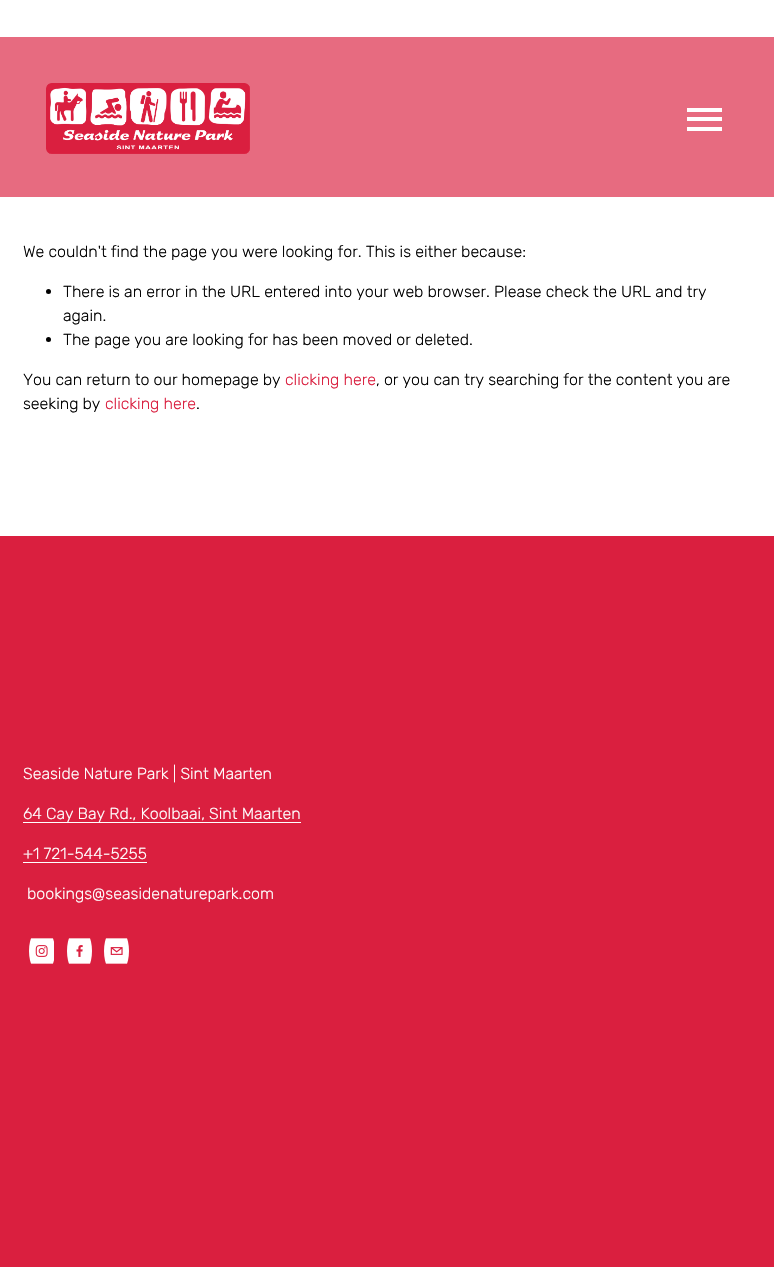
void draw(SkCanvas* canvas) {
    SkPaint paint;
    paint.setAntiAlias(true);
    canvas->clear(0xFFFFFFFF);
    paint.setColor(0xFFE76B80);
    canvas->drawRect(SkRect::MakeXYWH(0, 37, 774, 160), paint);
    canvas->drawImageRect(SkImages::DeferredFromEncodedData(SkData::MakeFromFileName("img1.png")), SkRect::MakeXYWH(46, 83, 204, 71), SkSamplingOptions());
    paint.setColor(0xFFFFFFFF);
    canvas->drawRect(SkRect::MakeXYWH(687, 108, 35, 4), paint);
    canvas->drawRect(SkRect::MakeXYWH(687, 117, 35, 4), paint);
    canvas->drawRect(SkRect::MakeXYWH(687, 127, 35, 4), paint);
    SkFont font1(fontMgr->matchFamilyStyle("Rubik", SkFontStyle(300, SkFontStyle::kNormal_Width, SkFontStyle::kUpright_Slant)), 16);
    font1.setSubpixel(true);
    paint.setColor(0xFF000000);
    canvas->drawString("We couldn't find the page you were looking for. This is either because:", 23, 257, font1, paint);
    canvas->drawCircle(48.5f, 291.5f, 2.5f, paint);
    canvas->drawString("There is an error in the URL entered into your web browser. Please check the URL and try", 63, 297, font1, paint);
    canvas->drawString("again.", 63, 321, font1, paint);
    canvas->drawCircle(48.5f, 339.5f, 2.5f, paint);
    canvas->drawString("The page you are looking for has been moved or deleted.", 63, 345, font1, paint);
    canvas->drawString("You can return to our homepage by", 23, 385, font1, paint);
    paint.setColor(0xFFDA1F3F);
    canvas->drawString("clicking here", 285, 385, font1, paint);
    paint.setColor(0xFF000000);
    canvas->drawString(", or you can try searching for the content you are", 376, 385, font1, paint);
    canvas->drawString("seeking by", 23, 409, font1, paint);
    paint.setColor(0xFFDA1F3F);
    canvas->drawString("clicking here", 105, 409, font1, paint);
    paint.setColor(0xFF000000);
    canvas->drawString(".", 196, 409, font1, paint);
    paint.setColor(0xFFDA1F3F);
    canvas->drawRect(SkRect::MakeXYWH(0, 536, 774, 731), paint);
    paint.setColor(0xFFFFFFFF);
    canvas->drawString("Seaside Nature Park | Sint Maarten", 23, 779, font1, paint);
    canvas->drawRect(SkRect::MakeXYWH(23, 822, 278, 1), paint);
    canvas->drawString("64 Cay Bay Rd., Koolbaai, Sint Maarten", 23, 819, font1, paint);
    canvas->drawString("+1 721-544-5255", 23, 859, font1, paint);
    canvas->drawRect(SkRect::MakeXYWH(23, 862, 124, 1), paint);
    canvas->drawString("bookings@seasidenaturepark.com", 27, 899, font1, paint);
    canvas->drawImageRect(SkImages::DeferredFromEncodedData(SkData::MakeFromFileName("img2.png")), SkRect::MakeXYWH(29, 938, 25, 26), SkSamplingOptions());
    canvas->drawImageRect(SkImages::DeferredFromEncodedData(SkData::MakeFromFileName("img3.png")), SkRect::MakeXYWH(67, 938, 25, 26), SkSamplingOptions());
    canvas->drawImageRect(SkImages::DeferredFromEncodedData(SkData::MakeFromFileName("img4.png")), SkRect::MakeXYWH(104, 938, 25, 26), SkSamplingOptions());
}
